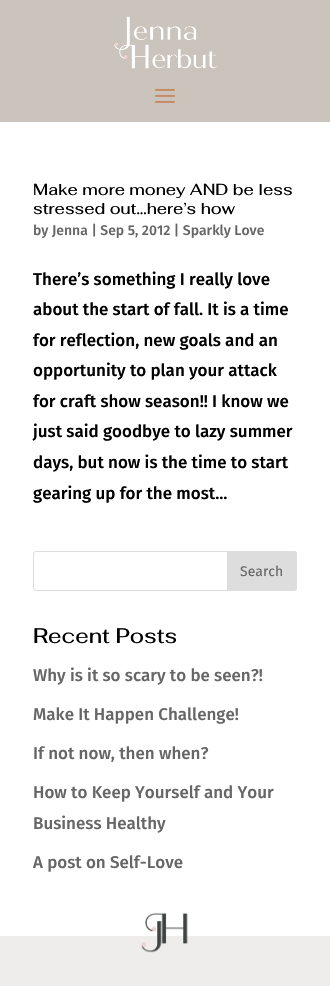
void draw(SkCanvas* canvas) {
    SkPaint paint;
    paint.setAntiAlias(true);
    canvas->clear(0xFFFFFFFF);
    paint.setColor(0xFFCBC4BC);
    canvas->drawRect(SkRect::MakeXYWH(0, 0, 330, 122), paint);
    canvas->drawImageRect(SkImages::DeferredFromEncodedData(SkData::MakeFromFileName("img1.png")), SkRect::MakeXYWH(114, 16, 103, 53), SkSamplingOptions());
    canvas->drawImageRect(SkImages::DeferredFromEncodedData(SkData::MakeFromFileName("img2.png")), SkRect::MakeXYWH(155, 88, 20, 15), SkSamplingOptions());
    SkFont font1(fontMgr->matchFamilyStyle("Fahkwang", SkFontStyle(500, SkFontStyle::kNormal_Width, SkFontStyle::kUpright_Slant)), 16);
    font1.setSubpixel(true);
    paint.setColor(0xFF000000);
    canvas->drawString("Make more money AND be less", 33, 195, font1, paint);
    canvas->drawString("stressed out…here’s how", 33, 214, font1, paint);
    SkFont font2(fontMgr->matchFamilyStyle("Fira Sans", SkFontStyle(500, SkFontStyle::kNormal_Width, SkFontStyle::kUpright_Slant)), 14);
    font2.setSubpixel(true);
    paint.setColor(0xFF666666);
    canvas->drawString("by Jenna | Sep 5, 2012 | Sparkly Love", 33, 235, font2, paint);
    SkFont font3(fontMgr->matchFamilyStyle("Fira Sans", SkFontStyle(500, SkFontStyle::kNormal_Width, SkFontStyle::kUpright_Slant)), 17);
    font3.setSubpixel(true);
    paint.setColor(0xFF000000);
    canvas->drawString("There’s something I really love", 33, 285, font3, paint);
    canvas->drawString("about the start of fall. It is a time", 33, 315, font3, paint);
    canvas->drawString("for reflection, new goals and an", 33, 346, font3, paint);
    canvas->drawString("opportunity to plan your attack", 33, 376, font3, paint);
    canvas->drawString("for craft show season!! I know we", 33, 407, font3, paint);
    canvas->drawString("just said goodbye to lazy summer", 33, 437, font3, paint);
    canvas->drawString("days, but now is the time to start", 33, 468, font3, paint);
    canvas->drawString("gearing up for the most...", 33, 499, font3, paint);
    paint.setStyle(SkPaint::kStroke_Style);
    paint.setStrokeWidth(1);
    paint.setColor(0xFFDDDDDD);
    canvas->drawRoundRect(SkRect::MakeXYWH(33.5f, 551.5f, 263, 39), 2.5f, 2.5f, paint);
    paint.setStyle(SkPaint::kFill_Style);
    canvas->drawPath(SkPathBuilder().moveTo(227.5f, 551.5f).lineTo(294, 551.5f).cubicTo(295.5f, 551.5f, 296.5f, 552.5f, 296.5f, 554).lineTo(296.5f, 588).cubicTo(296.5f, 589.5f, 295.5f, 590.5f, 294, 590.5f).lineTo(227.5f, 590.5f).close().detach(), paint);
    paint.setStyle(SkPaint::kStroke_Style);
    canvas->drawPath(SkPathBuilder().moveTo(227.5f, 551.5f).lineTo(294, 551.5f).cubicTo(295.5f, 551.5f, 296.5f, 552.5f, 296.5f, 554).lineTo(296.5f, 588).cubicTo(296.5f, 589.5f, 295.5f, 590.5f, 294, 590.5f).lineTo(227.5f, 590.5f).close().detach(), paint);
    SkFont font4(fontMgr->matchFamilyStyle("Fira Sans", SkFontStyle::Normal()), 14);
    font4.setSubpixel(true);
    paint.setStyle(SkPaint::kFill_Style);
    paint.setColor(0xFF666666);
    canvas->drawString("Search", 240, 576, font4, paint);
    SkFont font5(fontMgr->matchFamilyStyle("Fahkwang", SkFontStyle(500, SkFontStyle::kNormal_Width, SkFontStyle::kUpright_Slant)), 21);
    font5.setSubpixel(true);
    paint.setColor(0xFF000000);
    canvas->drawString("Recent Posts", 33, 643, font5, paint);
    paint.setColor(0xFF666666);
    canvas->drawString("Why is it so scary to be seen?!", 33, 681, font3, paint);
    canvas->drawString("Make It Happen Challenge!", 33, 720, font3, paint);
    canvas->drawString("If not now, then when?", 33, 759, font3, paint);
    canvas->drawString("How to Keep Yourself and Your", 33, 798, font3, paint);
    canvas->drawString("Business Healthy", 33, 829, font3, paint);
    canvas->drawString("A post on Self-Love", 33, 868, font3, paint);
    paint.setColor(0xFFEFEDEB);
    canvas->drawRect(SkRect::MakeXYWH(0, 936, 330, 50), paint);
    canvas->drawImageRect(SkImages::DeferredFromEncodedData(SkData::MakeFromFileName("img3.png")), SkRect::MakeXYWH(141, 912, 47, 41), SkSamplingOptions());
}
